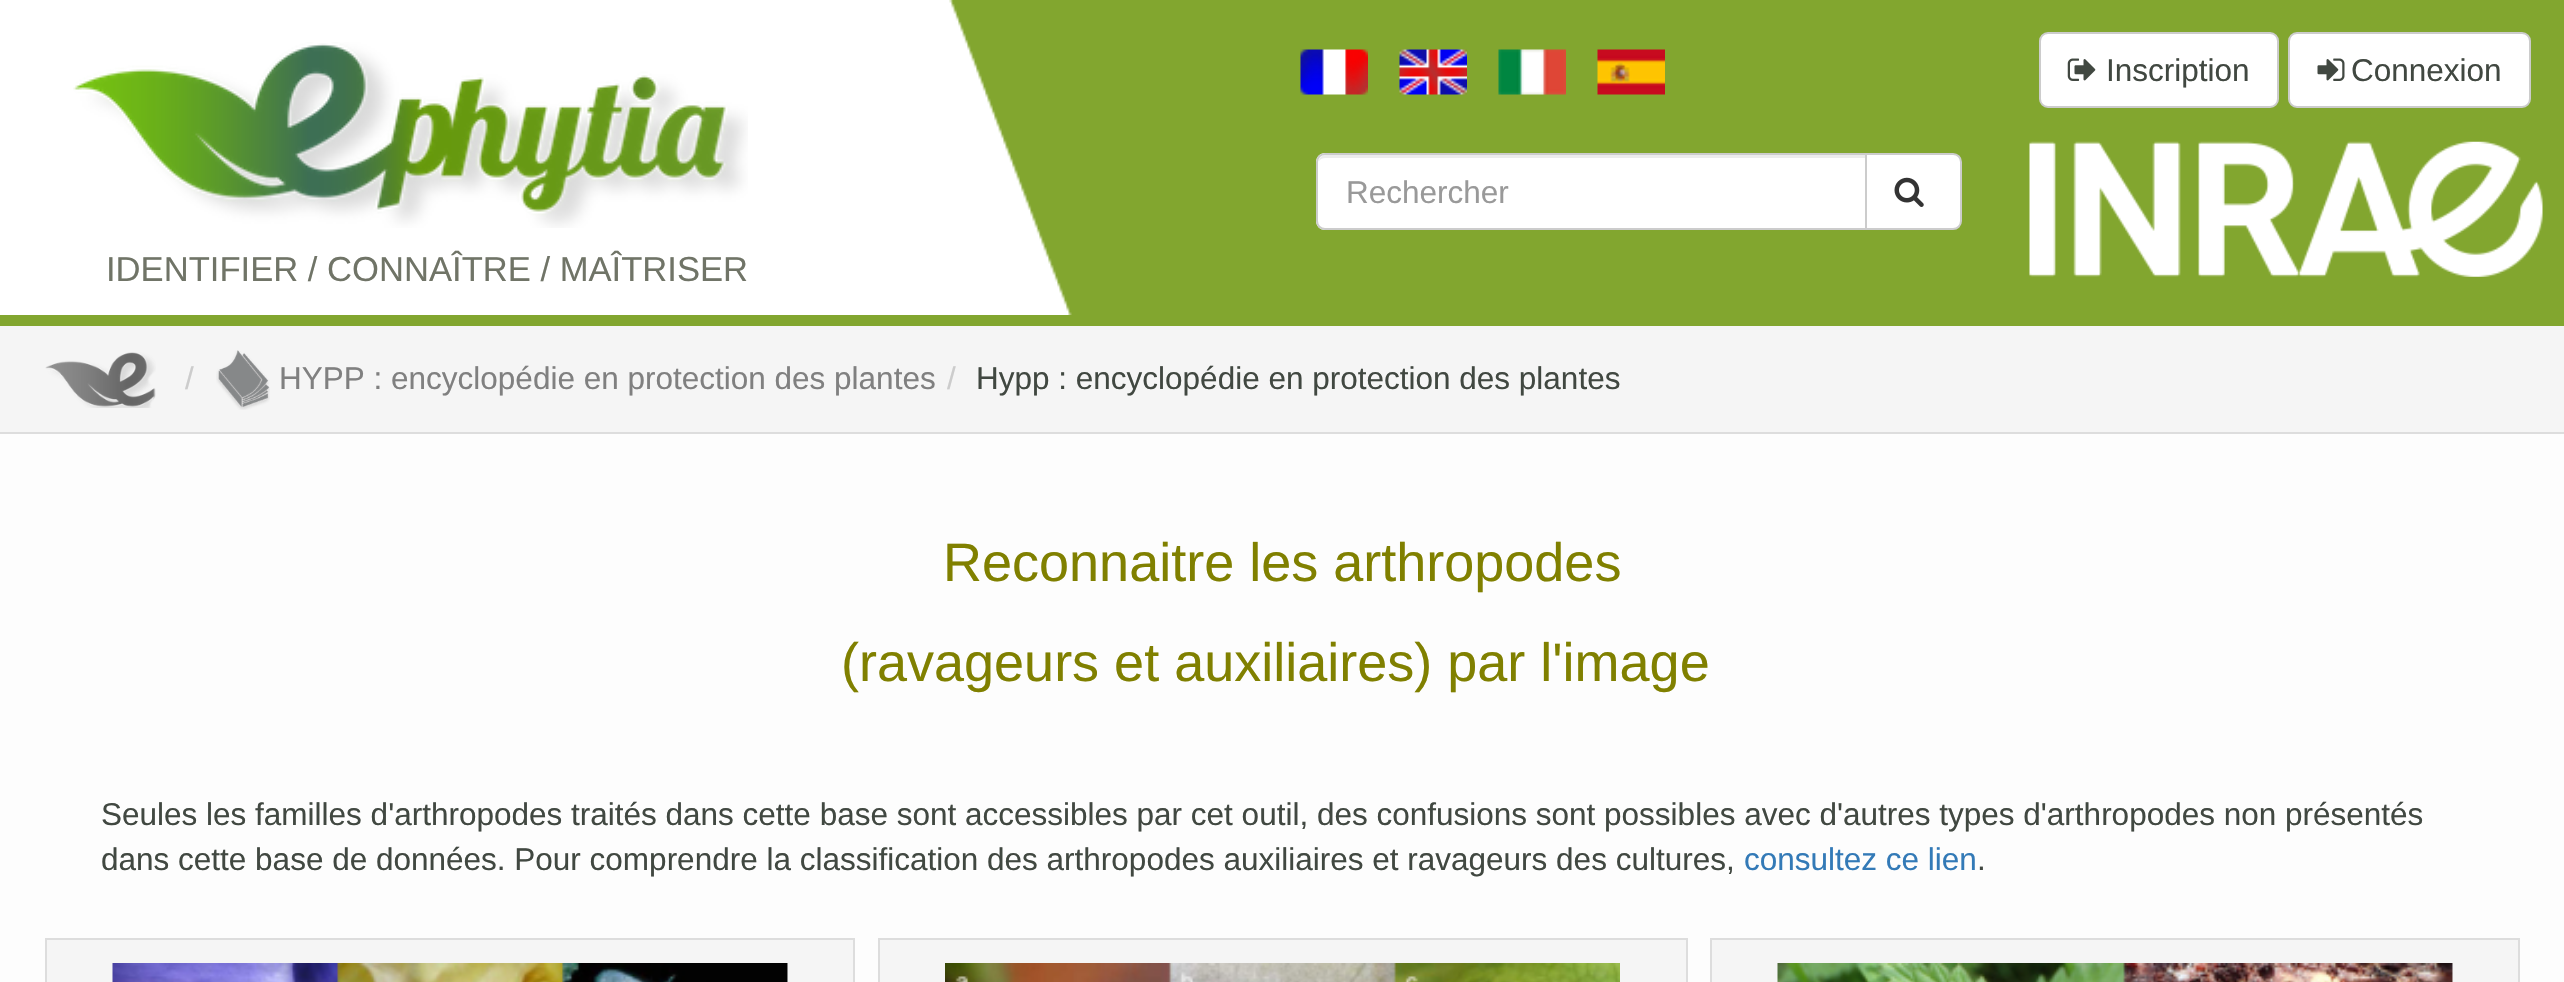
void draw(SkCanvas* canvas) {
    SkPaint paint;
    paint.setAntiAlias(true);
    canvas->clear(0xFFFDFDFD);
    paint.setColor(0xFF82A62F);
    canvas->drawRect(SkRect::MakeXYWH(0, 0, 2564, 326), paint);
    canvas->drawImageRect(SkImages::DeferredFromEncodedData(SkData::MakeFromFileName("img1.png")), SkRect::MakeXYWH(855, 0, 217, 315), SkSamplingOptions());
    canvas->drawImageRect(SkImages::DeferredFromEncodedData(SkData::MakeFromFileName("img2.png")), SkRect::MakeXYWH(1300, 49, 68, 46), SkSamplingOptions());
    canvas->drawImageRect(SkImages::DeferredFromEncodedData(SkData::MakeFromFileName("img3.png")), SkRect::MakeXYWH(1399, 49, 68, 46), SkSamplingOptions());
    canvas->drawImageRect(SkImages::DeferredFromEncodedData(SkData::MakeFromFileName("img4.png")), SkRect::MakeXYWH(1498, 49, 68, 46), SkSamplingOptions());
    canvas->drawImageRect(SkImages::DeferredFromEncodedData(SkData::MakeFromFileName("img5.png")), SkRect::MakeXYWH(1597, 49, 68, 46), SkSamplingOptions());
    paint.setColor(0xFFFFFFFF);
    canvas->drawRoundRect(SkRect::MakeXYWH(2040, 33, 238, 74), 8, 8, paint);
    paint.setStyle(SkPaint::kStroke_Style);
    paint.setStrokeWidth(2);
    paint.setColor(0xFFCCCCCC);
    canvas->drawRoundRect(SkRect::MakeXYWH(2040, 33, 238, 74), 8, 8, paint);
    canvas->drawImageRect(SkImages::DeferredFromEncodedData(SkData::MakeFromFileName("img6.png")), SkRect::MakeXYWH(2067, 58, 29, 23), SkSamplingOptions());
    SkFont font1(fontMgr->matchFamilyStyle("Liberation Sans", SkFontStyle::Normal()), 31.5f);
    font1.setSubpixel(true);
    paint.setStyle(SkPaint::kFill_Style);
    paint.setColor(0xFF414841);
    canvas->drawString("Inscription", 2106, 81, font1, paint);
    paint.setColor(0xFFFFFFFF);
    canvas->drawRoundRect(SkRect::MakeXYWH(2289, 33, 241, 74), 8, 8, paint);
    paint.setStyle(SkPaint::kStroke_Style);
    paint.setColor(0xFFCCCCCC);
    canvas->drawRoundRect(SkRect::MakeXYWH(2289, 33, 241, 74), 8, 8, paint);
    canvas->drawImageRect(SkImages::DeferredFromEncodedData(SkData::MakeFromFileName("img7.png")), SkRect::MakeXYWH(2317, 58, 28, 23), SkSamplingOptions());
    paint.setStyle(SkPaint::kFill_Style);
    paint.setColor(0xFF414841);
    canvas->drawString("Connexion", 2351, 81, font1, paint);
    paint.setColor(0xFFFFFFFF);
    canvas->drawPath(SkPathBuilder().moveTo(1325, 153).lineTo(1868, 153).lineTo(1868, 230).lineTo(1325, 230).cubicTo(1320, 230, 1316, 226, 1316, 221).lineTo(1316, 162).cubicTo(1316, 157, 1320, 153, 1325, 153).close().detach(), paint);
    paint.setColor(0xFFECECEC);
    canvas->drawPath(SkPathBuilder().moveTo(1325, 158).lineTo(1865, 158).lineTo(1865, 155).lineTo(1326, 155).cubicTo(1322, 155, 1319, 158, 1319, 161).cubicTo(1320, 159, 1323, 158, 1325, 158).close().detach(), paint);
    paint.setStyle(SkPaint::kStroke_Style);
    paint.setColor(0xFFCCCCCC);
    canvas->drawPath(SkPathBuilder().moveTo(1325, 154).lineTo(1867, 154).lineTo(1867, 229).lineTo(1325, 229).cubicTo(1320.5f, 229, 1317, 225.5f, 1317, 221).lineTo(1317, 162).cubicTo(1317, 157.5f, 1320.5f, 154, 1325, 154).close().detach(), paint);
    paint.setStyle(SkPaint::kFill_Style);
    paint.setColor(0xFF999999);
    canvas->drawString("Rechercher", 1346, 203, font1, paint);
    paint.setColor(0xFFFFFFFF);
    canvas->drawPath(SkPathBuilder().moveTo(1866, 154).lineTo(1953, 154).cubicTo(1957.5f, 154, 1961, 157.5f, 1961, 162).lineTo(1961, 221).cubicTo(1961, 225.5f, 1957.5f, 229, 1953, 229).lineTo(1866, 229).close().detach(), paint);
    paint.setStyle(SkPaint::kStroke_Style);
    paint.setColor(0xFFCCCCCC);
    canvas->drawPath(SkPathBuilder().moveTo(1866, 154).lineTo(1953, 154).cubicTo(1957.5f, 154, 1961, 157.5f, 1961, 162).lineTo(1961, 221).cubicTo(1961, 225.5f, 1957.5f, 229, 1953, 229).lineTo(1866, 229).close().detach(), paint);
    canvas->drawImageRect(SkImages::DeferredFromEncodedData(SkData::MakeFromFileName("img8.png")), SkRect::MakeXYWH(1894, 177, 30, 30), SkSamplingOptions());
    canvas->drawImageRect(SkImages::DeferredFromEncodedData(SkData::MakeFromFileName("img9.png")), SkRect::MakeXYWH(2029, 141, 514, 136), SkSamplingOptions());
    paint.setStyle(SkPaint::kFill_Style);
    paint.setColor(0xFFFFFFFF);
    canvas->drawRect(SkRect::MakeXYWH(0, 0, 855, 315), paint);
    canvas->drawImageRect(SkImages::DeferredFromEncodedData(SkData::MakeFromFileName("img10.png")), SkRect::MakeXYWH(73, 42, 675, 186), SkSamplingOptions());
    SkFont font2(fontMgr->matchFamilyStyle("Liberation Sans", SkFontStyle::Normal()), 34.6f);
    font2.setSubpixel(true);
    paint.setColor(0xFF707467);
    canvas->drawString("IDENTIFIER / CONNAÎTRE / MAÎTRISER", 106, 281, font2, paint);
    paint.setColor(0xFFDDDDDD);
    canvas->drawRect(SkRect::MakeXYWH(0, 432, 2564, 2), paint);
    paint.setColor(0xFFF5F5F5);
    canvas->drawRect(SkRect::MakeXYWH(0, 326, 2564, 106), paint);
    canvas->drawImageRect(SkImages::DeferredFromEncodedData(SkData::MakeFromFileName("img11.png")), SkRect::MakeXYWH(45, 352, 111, 56), SkSamplingOptions());
    paint.setColor(0xFFCCCCCC);
    canvas->drawString("/", 185, 389, font1, paint);
    canvas->drawImageRect(SkImages::DeferredFromEncodedData(SkData::MakeFromFileName("img12.png")), SkRect::MakeXYWH(216, 350, 54, 60), SkSamplingOptions());
    paint.setColor(0xFF808080);
    canvas->drawString("HYPP : encyclopédie en protection des plantes", 279, 389, font1, paint);
    paint.setColor(0xFFCCCCCC);
    canvas->drawString("/", 947, 389, font1, paint);
    paint.setColor(0xFF414841);
    canvas->drawString("Hypp : encyclopédie en protection des plantes", 976, 389, font1, paint);
    SkFont font3(fontMgr->matchFamilyStyle("Liberation Sans", SkFontStyle::Normal()), 54);
    font3.setSubpixel(true);
    paint.setColor(0xFF808000);
    canvas->drawString("Reconnaitre les arthropodes", 943, 581, font3, paint);
    canvas->drawString("(ravageurs et auxiliaires) par l'image", 841, 681, font3, paint);
    paint.setColor(0xFF414841);
    canvas->drawString("Seules les familles d'arthropodes traités dans cette base sont accessibles par cet outil, des confusions sont possibles avec d'autres types d'arthropodes non présentés", 101, 825, font1, paint);
    canvas->drawString("dans cette base de données. Pour comprendre la classification des arthropodes auxiliaires et ravageurs des cultures,", 101, 870, font1, paint);
    paint.setColor(0xFF337AB7);
    canvas->drawString("consultez ce lien", 1744, 870, font1, paint);
    paint.setColor(0xFF414841);
    canvas->drawString(".", 1977, 870, font1, paint);
    paint.setColor(0xFFF5F5F5);
    canvas->drawRect(SkRect::MakeXYWH(46, 939, 808, 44), paint);
    paint.setStyle(SkPaint::kStroke_Style);
    paint.setColor(0xFFDDDDDD);
    canvas->drawRect(SkRect::MakeXYWH(46, 939, 808, 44), paint);
    paint.setStyle(SkPaint::kFill_Style);
    paint.setColor(0xFFFFFFFF);
    canvas->drawRect(SkRect::MakeXYWH(787, 963, 1, 19), paint);
    canvas->drawImageRect(SkImages::DeferredFromEncodedData(SkData::MakeFromFileName("img13.png")), SkRect::MakeXYWH(112, 963, 676, 19), SkSamplingOptions());
    paint.setColor(0xFFF5F5F5);
    canvas->drawRect(SkRect::MakeXYWH(879, 939, 808, 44), paint);
    paint.setStyle(SkPaint::kStroke_Style);
    paint.setColor(0xFFDDDDDD);
    canvas->drawRect(SkRect::MakeXYWH(879, 939, 808, 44), paint);
    canvas->drawImageRect(SkImages::DeferredFromEncodedData(SkData::MakeFromFileName("img14.png")), SkRect::MakeXYWH(945, 963, 675, 19), SkSamplingOptions());
    paint.setStyle(SkPaint::kFill_Style);
    paint.setColor(0xFFF5F5F5);
    canvas->drawRect(SkRect::MakeXYWH(1711, 939, 808, 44), paint);
    paint.setStyle(SkPaint::kStroke_Style);
    paint.setColor(0xFFDDDDDD);
    canvas->drawRect(SkRect::MakeXYWH(1711, 939, 808, 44), paint);
    paint.setStyle(SkPaint::kFill_Style);
    paint.setColor(0xFFFFFFFF);
    canvas->drawRect(SkRect::MakeXYWH(2452, 963, 1, 19), paint);
    canvas->drawImageRect(SkImages::DeferredFromEncodedData(SkData::MakeFromFileName("img15.png")), SkRect::MakeXYWH(1777, 963, 676, 19), SkSamplingOptions());
}
